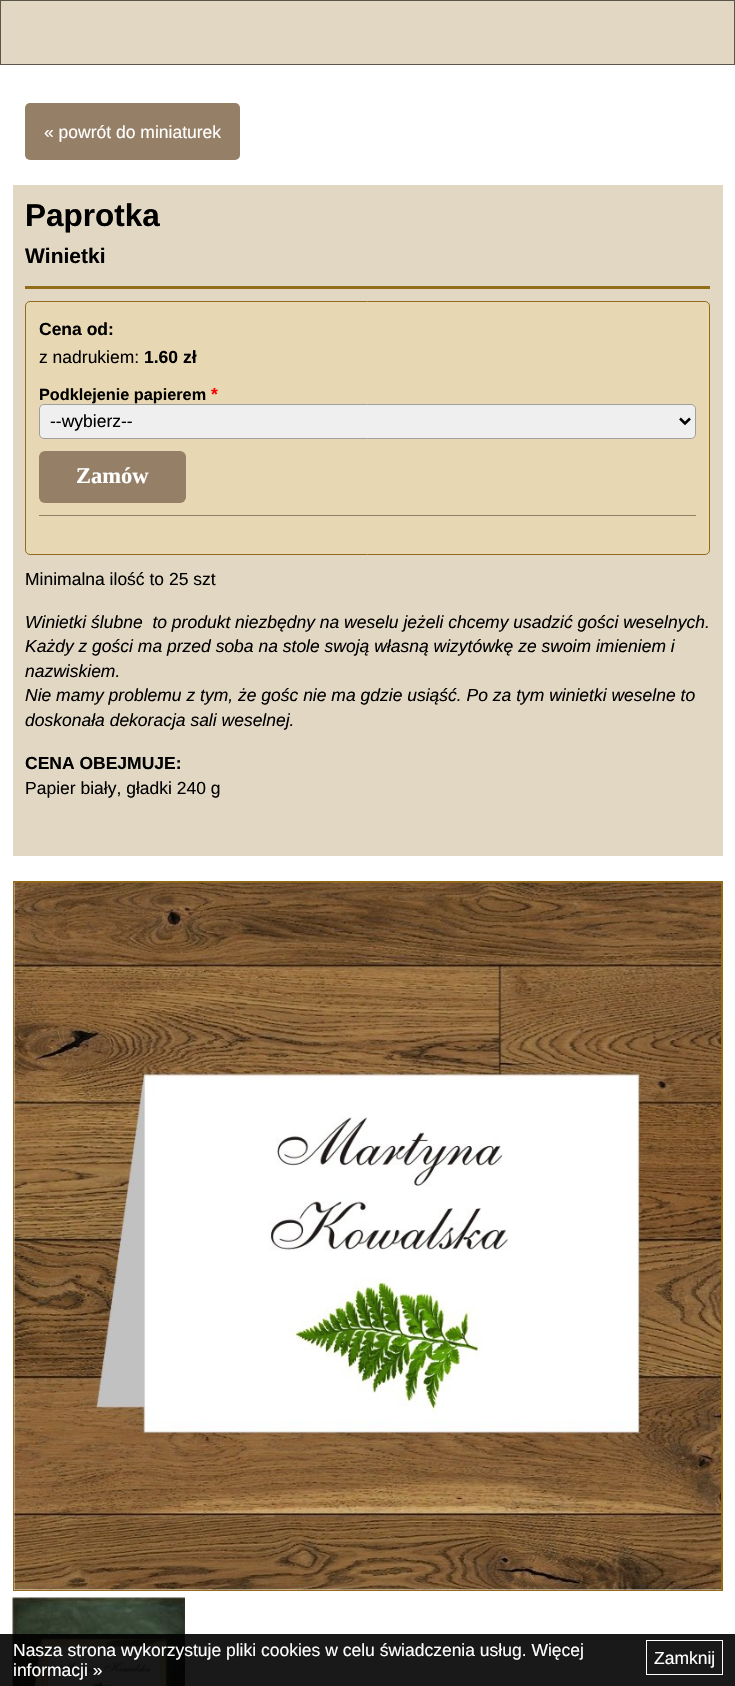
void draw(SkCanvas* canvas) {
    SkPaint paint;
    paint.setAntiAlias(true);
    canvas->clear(0xFFFFFFFF);
    paint.setColor(0xFFE2D7C3);
    canvas->drawRect(SkRect::MakeXYWH(0.5f, 0.5f, 734, 64), paint);
    paint.setStyle(SkPaint::kStroke_Style);
    paint.setStrokeWidth(1);
    paint.setColor(0xFF5B5549);
    canvas->drawRect(SkRect::MakeXYWH(0.5f, 0.5f, 734, 64), paint);
    paint.setStyle(SkPaint::kFill_Style);
    paint.setColor(0xFF957F66);
    canvas->drawRoundRect(SkRect::MakeXYWH(25, 103, 215, 57), 5, 5, paint);
    SkFont font1(fontMgr->matchFamilyStyle("Liberation Sans", SkFontStyle::Normal()), 17.5f);
    font1.setSubpixel(true);
    paint.setColor(0xFFFFFFFF);
    canvas->drawString("« powrót do miniaturek", 44, 138, font1, paint);
    paint.setColor(0xFFE2D7C3);
    canvas->drawRect(SkRect::MakeXYWH(13, 185, 710, 671), paint);
    SkFont font2(fontMgr->matchFamilyStyle("Liberation Sans", SkFontStyle::Bold()), 31.5f);
    font2.setSubpixel(true);
    paint.setColor(0xFF000000);
    canvas->drawString("Paprotka", 25, 226, font2, paint);
    paint.setColor(0xFF936C19);
    canvas->drawRect(SkRect::MakeXYWH(25, 286, 685, 3), paint);
    SkFont font3(fontMgr->matchFamilyStyle("Liberation Sans", SkFontStyle::Bold()), 21);
    font3.setSubpixel(true);
    paint.setColor(0xFF000000);
    canvas->drawString("Winietki", 25, 263, font3, paint);
    paint.setColor(0xFFE7D7B2);
    canvas->drawRoundRect(SkRect::MakeXYWH(25.5f, 301.5f, 684, 253), 4.5f, 4.5f, paint);
    paint.setStyle(SkPaint::kStroke_Style);
    paint.setColor(0xFF936C19);
    canvas->drawRoundRect(SkRect::MakeXYWH(25.5f, 301.5f, 684, 253), 4.5f, 4.5f, paint);
    SkFont font4(fontMgr->matchFamilyStyle("Liberation Sans", SkFontStyle::Bold()), 17.5f);
    font4.setSubpixel(true);
    paint.setStyle(SkPaint::kFill_Style);
    paint.setColor(0xFF000000);
    canvas->drawString("Cena od:", 39, 335, font4, paint);
    canvas->drawString("z nadrukiem:", 39, 363, font1, paint);
    canvas->drawString("1.60 zł", 144, 363, font4, paint);
    paint.setColor(0xFF957F66);
    canvas->drawRect(SkRect::MakeXYWH(39, 515, 657, 1), paint);
    SkFont font5(fontMgr->matchFamilyStyle("Liberation Sans", SkFontStyle::Bold()), 16.25f);
    font5.setSubpixel(true);
    paint.setColor(0xFF000000);
    canvas->drawString("Podklejenie papierem", 39, 400, font5, paint);
    paint.setColor(0xFFF60000);
    canvas->drawString("*", 211, 400, font4, paint);
    paint.setColor(0xFFEFEFEF);
    canvas->drawRoundRect(SkRect::MakeXYWH(39.5f, 404.5f, 656, 34), 4.5f, 4.5f, paint);
    paint.setStyle(SkPaint::kStroke_Style);
    paint.setColor(0xFF9F9F9F);
    canvas->drawRoundRect(SkRect::MakeXYWH(39.5f, 404.5f, 656, 34), 4.5f, 4.5f, paint);
    paint.setStrokeWidth(2.5f);
    paint.setColor(0xFF000000);
    canvas->drawPath(SkPathBuilder().moveTo(680, 418.5f).lineTo(685, 423.5f).lineTo(690, 418.5f).detach(), paint);
    paint.setStyle(SkPaint::kFill_Style);
    canvas->drawString("--wybierz--", 50, 427, font1, paint);
    paint.setColor(0xFF957F66);
    canvas->drawRoundRect(SkRect::MakeXYWH(39, 451, 147, 52), 6, 6, paint);
    SkFont font6(fontMgr->matchFamilyStyle("Liberation Serif", SkFontStyle::Bold()), 22.5f);
    font6.setSubpixel(true);
    paint.setColor(0xFFFFFFFF);
    canvas->drawString("Zamów", 76, 483, font6, paint);
    paint.setColor(0xFF000000);
    canvas->drawString("Minimalna ilość to 25 szt", 25, 585, font1, paint);
    SkFont font7(fontMgr->matchFamilyStyle("Liberation Sans", SkFontStyle::Italic()), 17.5f);
    font7.setSubpixel(true);
    canvas->drawString("Winietki ślubne  to produkt niezbędny na weselu jeżeli chcemy usadzić gości weselnych.", 25, 628, font7, paint);
    canvas->drawString("Każdy z gości ma przed soba na stole swoją własną wizytówkę ze swoim imieniem i", 25, 652, font7, paint);
    canvas->drawString("nazwiskiem.", 25, 677, font7, paint);
    canvas->drawString("Nie mamy problemu z tym, że gośc nie ma gdzie usiąść. Po za tym winietki weselne to", 25, 701, font7, paint);
    canvas->drawString("doskonała dekoracja sali weselnej.", 25, 726, font7, paint);
    canvas->drawString("CENA OBEJMUJE:", 25, 769, font4, paint);
    canvas->drawString("Papier biały, gładki 240 g", 25, 794, font1, paint);
    paint.setColor(0xFF936C19);
    canvas->drawRect(SkRect::MakeXYWH(13, 881, 710, 710), paint);
    canvas->drawImageRect(SkImages::DeferredFromEncodedData(SkData::MakeFromFileName("img1.png")), SkRect::MakeXYWH(13, 882, 709, 708), SkSamplingOptions());
    canvas->drawImageRect(SkImages::DeferredFromEncodedData(SkData::MakeFromFileName("img2.png")), SkRect::MakeXYWH(12, 1597, 173, 89), SkSamplingOptions());
    paint.setColor(0xE6000000);
    canvas->drawRect(SkRect::MakeXYWH(0, 1634, 735, 52), paint);
    paint.setColor(0xFFFFFFFF);
    canvas->drawString("Nasza strona wykorzystuje pliki cookies w celu świadczenia usług. Więcej", 13, 1656, font1, paint);
    paint.setStyle(SkPaint::kStroke_Style);
    paint.setStrokeWidth(1);
    canvas->drawRect(SkRect::MakeXYWH(646.5f, 1640.5f, 76, 34), paint);
    paint.setStyle(SkPaint::kFill_Style);
    canvas->drawString("Zamknij", 654, 1664, font1, paint);
    canvas->drawString("informacji »", 13, 1676, font1, paint);
}
